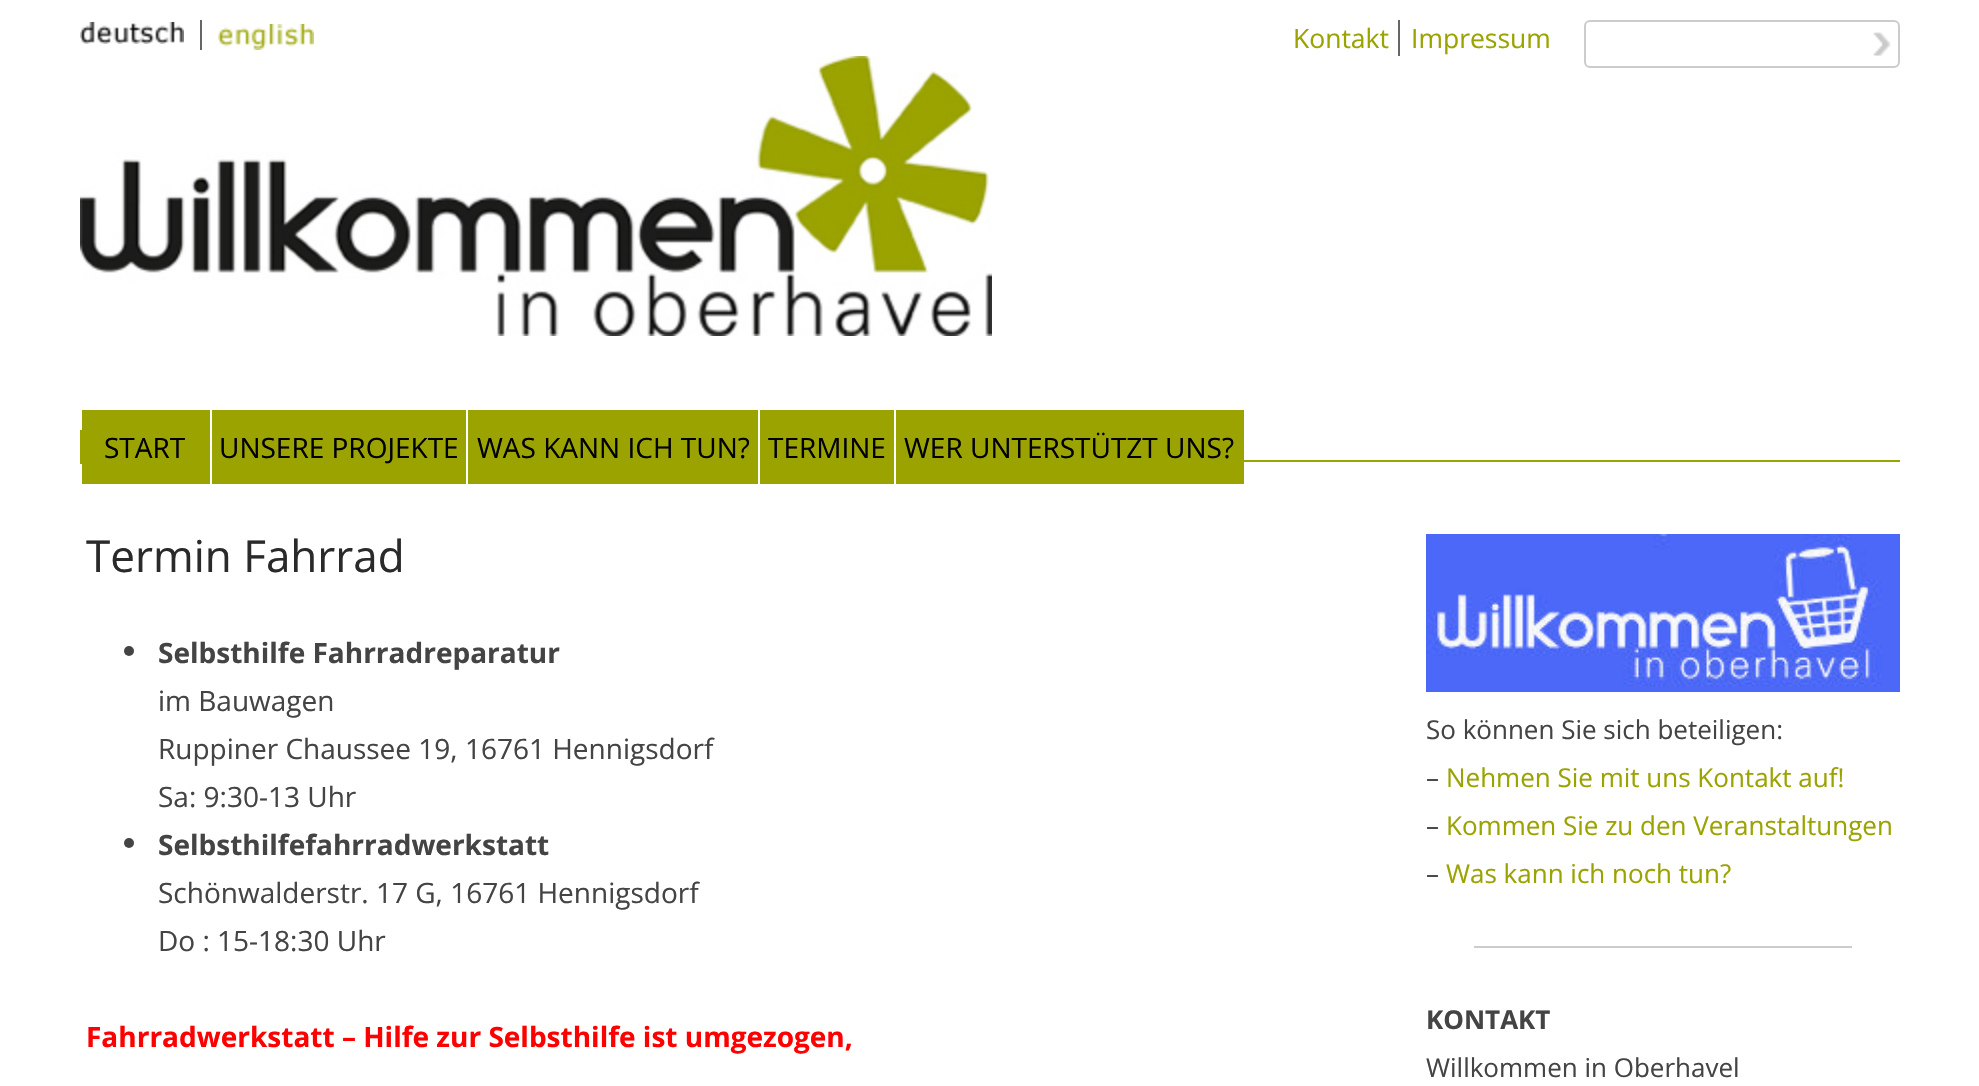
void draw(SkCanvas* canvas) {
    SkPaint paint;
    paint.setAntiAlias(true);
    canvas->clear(0xFFFFFFFF);
    canvas->drawImageRect(SkImages::DeferredFromEncodedData(SkData::MakeFromFileName("img1.png")), SkRect::MakeXYWH(80, 22, 104, 22), SkSamplingOptions());
    paint.setColor(0xFF666666);
    canvas->drawRect(SkRect::MakeXYWH(200, 20, 2, 30), paint);
    canvas->drawImageRect(SkImages::DeferredFromEncodedData(SkData::MakeFromFileName("img2.png")), SkRect::MakeXYWH(218, 24, 96, 26), SkSamplingOptions());
    SkFont font1(fontMgr->matchFamilyStyle("Open Sans", SkFontStyle::Normal()), 26.5f);
    font1.setSubpixel(true);
    paint.setColor(0xFF9BA300);
    canvas->drawString("Kontakt", 1293, 48, font1, paint);
    paint.setColor(0xFF666666);
    canvas->drawRect(SkRect::MakeXYWH(1398, 20, 2, 36), paint);
    paint.setColor(0xFF9BA300);
    canvas->drawString("Impressum", 1411, 48, font1, paint);
    paint.setStyle(SkPaint::kStroke_Style);
    paint.setStrokeWidth(2);
    paint.setColor(0xFFCCCCCC);
    canvas->drawRoundRect(SkRect::MakeXYWH(1585, 21, 314, 46), 5, 5, paint);
    canvas->drawImageRect(SkImages::DeferredFromEncodedData(SkData::MakeFromFileName("img3.png")), SkRect::MakeXYWH(1873, 32, 18, 24), SkSamplingOptions());
    canvas->drawImageRect(SkImages::DeferredFromEncodedData(SkData::MakeFromFileName("img4.png")), SkRect::MakeXYWH(80, 56, 912, 280), SkSamplingOptions());
    paint.setStyle(SkPaint::kFill_Style);
    paint.setColor(0xFF9BA300);
    canvas->drawRect(SkRect::MakeXYWH(1244, 460, 656, 2), paint);
    canvas->drawRect(SkRect::MakeXYWH(80, 430, 2, 34), paint);
    canvas->drawRect(SkRect::MakeXYWH(82, 410, 128, 74), paint);
    SkFont font2(fontMgr->matchFamilyStyle("Open Sans", SkFontStyle::Normal()), 28);
    font2.setSubpixel(true);
    paint.setColor(0xFF000000);
    canvas->drawString("START", 104, 458, font2, paint);
    paint.setColor(0xFF9BA300);
    canvas->drawRect(SkRect::MakeXYWH(212, 410, 254, 74), paint);
    paint.setColor(0xFF000000);
    canvas->drawString("UNSERE PROJEKTE", 219, 458, font2, paint);
    paint.setColor(0xFF9BA300);
    canvas->drawRect(SkRect::MakeXYWH(468, 410, 290, 74), paint);
    paint.setColor(0xFF000000);
    canvas->drawString("WAS KANN ICH TUN?", 477, 458, font2, paint);
    paint.setColor(0xFF9BA300);
    canvas->drawRect(SkRect::MakeXYWH(760, 410, 134, 74), paint);
    paint.setColor(0xFF000000);
    canvas->drawString("TERMINE", 768, 458, font2, paint);
    paint.setColor(0xFF9BA300);
    canvas->drawRect(SkRect::MakeXYWH(896, 410, 348, 74), paint);
    paint.setColor(0xFF000000);
    canvas->drawString("WER UNTERSTÜTZT UNS?", 904, 458, font2, paint);
    SkFont font3(fontMgr->matchFamilyStyle("Open Sans", SkFontStyle::Normal()), 44);
    font3.setSubpixel(true);
    paint.setColor(0xFF2A2A2A);
    canvas->drawString("Termin Fahrrad", 86, 572, font3, paint);
    paint.setColor(0xFF444444);
    canvas->drawCircle(129, 651, 5, paint);
    SkFont font4(fontMgr->matchFamilyStyle("Open Sans", SkFontStyle::Bold()), 28);
    font4.setSubpixel(true);
    canvas->drawString("Selbsthilfe Fahrradreparatur", 158, 663, font4, paint);
    canvas->drawString("im Bauwagen", 158, 711, font2, paint);
    canvas->drawString("Ruppiner Chaussee 19, 16761 Hennigsdorf", 158, 759, font2, paint);
    canvas->drawString("Sa: 9:30-13 Uhr", 158, 807, font2, paint);
    canvas->drawCircle(129, 843, 5, paint);
    canvas->drawString("Selbsthilfefahrradwerkstatt", 158, 855, font4, paint);
    canvas->drawString("Schönwalderstr. 17 G, 16761 Hennigsdorf", 158, 903, font2, paint);
    canvas->drawString("Do : 15-18:30 Uhr", 158, 951, font2, paint);
    paint.setColor(0xFFFF0000);
    canvas->drawString("Fahrradwerkstatt – Hilfe zur Selbsthilfe ist umgezogen,", 86, 1047, font4, paint);
    canvas->drawImageRect(SkImages::DeferredFromEncodedData(SkData::MakeFromFileName("img5.png")), SkRect::MakeXYWH(1426, 534, 474, 158), SkSamplingOptions());
    SkFont font5(fontMgr->matchFamilyStyle("Open Sans", SkFontStyle::Normal()), 26);
    font5.setSubpixel(true);
    paint.setColor(0xFF444444);
    canvas->drawString("So können Sie sich beteiligen:", 1426, 739, font5, paint);
    canvas->drawString("–", 1426, 787, font5, paint);
    paint.setColor(0xFF9BA300);
    canvas->drawString("Nehmen Sie mit uns Kontakt auf!", 1446, 787, font5, paint);
    paint.setColor(0xFF444444);
    canvas->drawString("–", 1426, 835, font5, paint);
    paint.setColor(0xFF9BA300);
    canvas->drawString("Kommen Sie zu den Veranstaltungen", 1446, 835, font5, paint);
    paint.setColor(0xFF444444);
    canvas->drawString("–", 1426, 883, font5, paint);
    paint.setColor(0xFF9BA300);
    canvas->drawString("Was kann ich noch tun?", 1446, 883, font5, paint);
    paint.setColor(0xFFCCCCCC);
    canvas->drawRect(SkRect::MakeXYWH(1474, 946, 378, 2), paint);
    SkFont font6(fontMgr->matchFamilyStyle("Open Sans", SkFontStyle::Bold()), 26);
    font6.setSubpixel(true);
    paint.setColor(0xFF444444);
    canvas->drawString("KONTAKT", 1426, 1029, font6, paint);
    canvas->drawString("Willkommen in Oberhavel", 1426, 1077, font5, paint);
}
